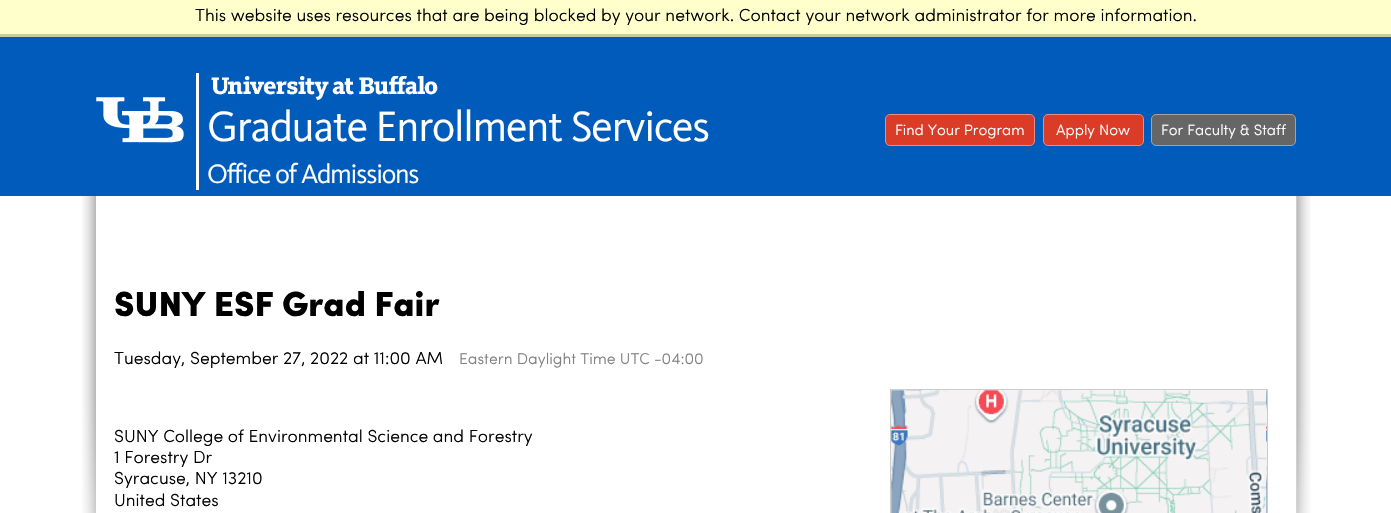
void draw(SkCanvas* canvas) {
    SkPaint paint;
    paint.setAntiAlias(true);
    auto spacedText = [&](const char* s, float x, float y, const SkFont& font, const SkPaint& ink, float letter, float word) {
        std::vector<SkGlyphID> glyphs(font.countText(s, strlen(s), SkTextEncoding::kUTF8));
        std::vector<float> xs(glyphs.size());
        font.textToGlyphs(s, strlen(s), SkTextEncoding::kUTF8, glyphs);
        font.getXPos(glyphs, xs, x);
        float extra = 0;
        for (size_t i = 0; i < glyphs.size(); i++) {
            xs[i] += extra;
            extra += letter + word * (glyphs[i] == font.unicharToGlyph(' '));
        }
        canvas->drawTextBlob(SkTextBlob::MakeFromPosHGlyphs(glyphs, xs, y, font), 0, 0, ink);
    };
    canvas->clear(0xFFFFFFFF);
    paint.setColor(0xFFFFFFCC);
    canvas->drawRect(SkRect::MakeXYWH(0, 0, 1391, 34), paint);
    paint.setColor(0xFFCCCC99);
    canvas->drawRect(SkRect::MakeXYWH(0, 34, 1391, 3), paint);
    SkFont font1(fontMgr->matchFamilyStyle("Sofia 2", SkFontStyle::Normal()), 17.5f);
    font1.setSubpixel(true);
    paint.setColor(0xFF000000);
    canvas->drawString("This website uses resources that are being blocked by your network. Contact your network administrator for more information.", 195, 21, font1, paint);
    canvas->drawImageRect(SkImages::DeferredFromEncodedData(SkData::MakeFromFileName("img1.png")), SkRect::MakeXYWH(82, 196, 1229, 317), SkSamplingOptions());
    paint.setColor(0xFF005BBB);
    canvas->drawRect(SkRect::MakeXYWH(0, 37, 1391, 159), paint);
    paint.setColor(0xFFFFFFFF);
    canvas->drawRect(SkRect::MakeXYWH(196, 73, 3, 117), paint);
    canvas->drawImageRect(SkImages::DeferredFromEncodedData(SkData::MakeFromFileName("img2.png")), SkRect::MakeXYWH(211, 76, 227, 25), SkSamplingOptions());
    canvas->drawImageRect(SkImages::DeferredFromEncodedData(SkData::MakeFromFileName("img3.png")), SkRect::MakeXYWH(96, 97, 88, 46), SkSamplingOptions());
    SkFont font2(fontMgr->matchFamilyStyle("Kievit", SkFontStyle::Normal()), 43.75f);
    font2.setSubpixel(true);
    spacedText("Graduate Enrollment Services", 207, 141, font2, paint, -1.25f, 0);
    SkFont font3(fontMgr->matchFamilyStyle("Kievit", SkFontStyle::Normal()), 27.5f);
    font3.setSubpixel(true);
    spacedText("Office of Admissions", 207, 183, font3, paint, -1.25f, 0);
    paint.setColor(0xFFDA3C28);
    canvas->drawRoundRect(SkRect::MakeXYWH(885.5f, 114.5f, 149, 31), 4.5f, 4.5f, paint);
    paint.setStyle(SkPaint::kStroke_Style);
    paint.setStrokeWidth(1);
    paint.setColor(0xFFE98A84);
    canvas->drawRoundRect(SkRect::MakeXYWH(885.5f, 114.5f, 149, 31), 4.5f, 4.5f, paint);
    SkFont font4(fontMgr->matchFamilyStyle("Sofia 2", SkFontStyle::Normal()), 15);
    font4.setSubpixel(true);
    paint.setStyle(SkPaint::kFill_Style);
    paint.setColor(0xFFFFFFFF);
    canvas->drawString("Find Your Program", 895, 135, font4, paint);
    paint.setColor(0xFFDA3C28);
    canvas->drawRoundRect(SkRect::MakeXYWH(1043.5f, 114.5f, 100, 31), 4.5f, 4.5f, paint);
    paint.setStyle(SkPaint::kStroke_Style);
    paint.setColor(0xFFE98A84);
    canvas->drawRoundRect(SkRect::MakeXYWH(1043.5f, 114.5f, 100, 31), 4.5f, 4.5f, paint);
    paint.setStyle(SkPaint::kFill_Style);
    paint.setColor(0xFFFFFFFF);
    canvas->drawString("Apply Now", 1056, 135, font4, paint);
    paint.setColor(0xFF666666);
    canvas->drawRoundRect(SkRect::MakeXYWH(1151.5f, 114.5f, 144, 31), 4.5f, 4.5f, paint);
    paint.setStyle(SkPaint::kStroke_Style);
    paint.setColor(0xFFA3A3A3);
    canvas->drawRoundRect(SkRect::MakeXYWH(1151.5f, 114.5f, 144, 31), 4.5f, 4.5f, paint);
    paint.setStyle(SkPaint::kFill_Style);
    paint.setColor(0xFFFFFFFF);
    canvas->drawString("For Faculty & Staff", 1161, 135, font4, paint);
    canvas->drawRect(SkRect::MakeXYWH(96, 196, 1200, 317), paint);
    SkFont font5(fontMgr->matchFamilyStyle("Sofia", SkFontStyle::Normal()), 35);
    font5.setSubpixel(true);
    paint.setColor(0xFF000000);
    canvas->drawString("SUNY ESF Grad Fair", 114, 316, font5, paint);
    canvas->drawString("Tuesday, September 27, 2022 at 11:00 AM", 114, 364, font1, paint);
    SkFont font6(fontMgr->matchFamilyStyle("Sofia 2", SkFontStyle::Normal()), 15.75f);
    font6.setSubpixel(true);
    paint.setColor(0xFF808080);
    canvas->drawString("Eastern Daylight Time UTC -04:00", 459, 364, font6, paint);
    paint.setColor(0xFF000000);
    canvas->drawString("SUNY College of Environmental Science and Forestry", 114, 442, font1, paint);
    canvas->drawString("1 Forestry Dr", 114, 463, font1, paint);
    canvas->drawString("Syracuse, NY 13210", 114, 484, font1, paint);
    canvas->drawString("United States", 114, 506, font1, paint);
    canvas->drawImageRect(SkImages::DeferredFromEncodedData(SkData::MakeFromFileName("img4.png")), SkRect::MakeXYWH(891, 390, 376, 123), SkSamplingOptions());
    paint.setStyle(SkPaint::kStroke_Style);
    paint.setColor(0xFFCCCCCC);
    canvas->drawRect(SkRect::MakeXYWH(890.5f, 389.5f, 377, 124), paint);
}
